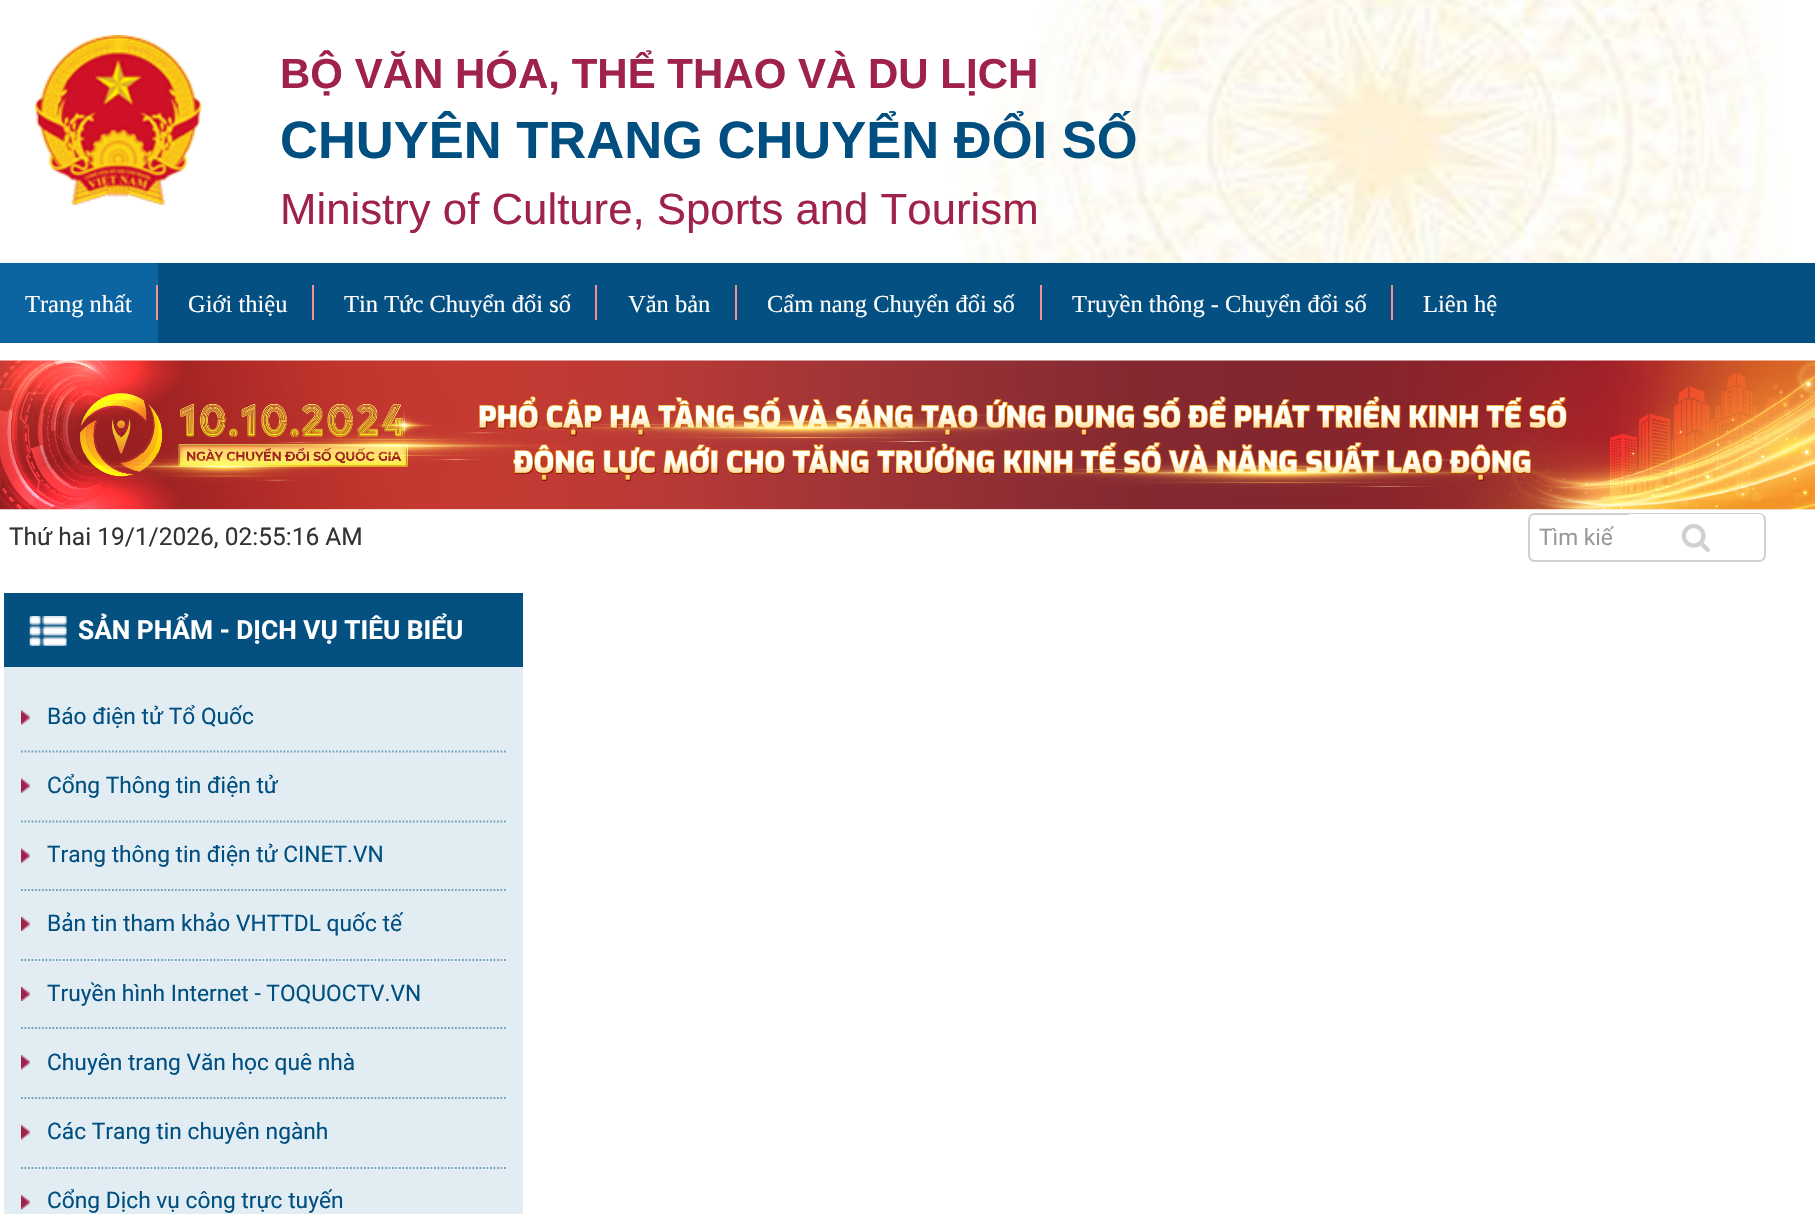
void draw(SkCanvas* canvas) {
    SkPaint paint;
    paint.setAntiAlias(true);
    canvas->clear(0xFFEEF3FA);
    canvas->drawImageRect(SkImages::DeferredFromEncodedData(SkData::MakeFromFileName("img1.png")), SkRect::MakeXYWH(0, 0, 1815, 263), SkSamplingOptions());
    canvas->drawImageRect(SkImages::DeferredFromEncodedData(SkData::MakeFromFileName("img2.png")), SkRect::MakeXYWH(35, 35, 167, 170), SkSamplingOptions());
    SkFont font1(fontMgr->matchFamilyStyle("Liberation Sans", SkFontStyle::Bold()), 42);
    font1.setSubpixel(true);
    paint.setColor(0xFF9F224E);
    canvas->drawString("BỘ VĂN HÓA, THỂ THAO VÀ DU LỊCH", 280, 88, font1, paint);
    SkFont font2(fontMgr->matchFamilyStyle("Liberation Sans", SkFontStyle::Bold()), 52.5f);
    font2.setSubpixel(true);
    paint.setColor(0xFF004F80);
    canvas->drawString("CHUYÊN TRANG CHUYỂN ĐỔI SỐ", 280, 158, font2, paint);
    SkFont font3(fontMgr->matchFamilyStyle("Liberation Sans", SkFontStyle::Normal()), 43.75f);
    font3.setSubpixel(true);
    paint.setColor(0xFF9F224E);
    canvas->drawString("Ministry of Culture, Sports and Tourism", 280, 224, font3, paint);
    paint.setColor(0xFF045082);
    canvas->drawRect(SkRect::MakeXYWH(158, 263, 1657, 80), paint);
    paint.setColor(0xFFFFFFFF);
    canvas->drawRect(SkRect::MakeXYWH(0, 343, 1815, 18), paint);
    paint.setColor(0xFF0C65A0);
    canvas->drawRect(SkRect::MakeXYWH(0, 263, 158, 80), paint);
    paint.setColor(0xFFF68E92);
    canvas->drawRect(SkRect::MakeXYWH(156, 285, 2, 35), paint);
    SkFont font4(fontMgr->matchFamilyStyle("Liberation Serif", SkFontStyle::Normal()), 24.5f);
    font4.setSubpixel(true);
    paint.setColor(0xFFFFFFFF);
    canvas->drawString("Trang nhất", 25, 312, font4, paint);
    paint.setColor(0xFFF68E92);
    canvas->drawRect(SkRect::MakeXYWH(312, 285, 2, 35), paint);
    paint.setColor(0xFFFFFFFF);
    canvas->drawString("Giới thiệu", 188, 312, font4, paint);
    paint.setColor(0xFFF68E92);
    canvas->drawRect(SkRect::MakeXYWH(595, 285, 2, 35), paint);
    paint.setColor(0xFFFFFFFF);
    canvas->drawString("Tin Tức Chuyển đổi số", 344, 312, font4, paint);
    paint.setColor(0xFFF68E92);
    canvas->drawRect(SkRect::MakeXYWH(735, 285, 2, 35), paint);
    paint.setColor(0xFFFFFFFF);
    canvas->drawString("Văn bản", 628, 312, font4, paint);
    paint.setColor(0xFFF68E92);
    canvas->drawRect(SkRect::MakeXYWH(1040, 285, 2, 35), paint);
    paint.setColor(0xFFFFFFFF);
    canvas->drawString("Cẩm nang Chuyển đổi số", 767, 312, font4, paint);
    paint.setColor(0xFFF68E92);
    canvas->drawRect(SkRect::MakeXYWH(1391, 285, 2, 35), paint);
    paint.setColor(0xFFFFFFFF);
    canvas->drawString("Truyền thông - Chuyển đổi số", 1072, 312, font4, paint);
    canvas->drawString("Liên hệ", 1423, 312, font4, paint);
    canvas->drawRect(SkRect::MakeXYWH(0, 509, 1815, 705), paint);
    canvas->drawImageRect(SkImages::DeferredFromEncodedData(SkData::MakeFromFileName("img3.png")), SkRect::MakeXYWH(0, 360, 1815, 150), SkSamplingOptions());
    SkFont font5(fontMgr->matchFamilyStyle("Roboto", SkFontStyle::Normal()), 24.5f);
    font5.setSubpixel(true);
    paint.setColor(0xFF333333);
    canvas->drawString("Thứ hai 19/1/2026, 02:55:16 AM", 9, 545, font5, paint);
    paint.setStyle(SkPaint::kStroke_Style);
    paint.setStrokeWidth(2);
    paint.setColor(0xFFD0D0D0);
    canvas->drawPath(SkPathBuilder().moveTo(1535, 514).lineTo(1630, 514).lineTo(1630, 561).lineTo(1535, 561).cubicTo(1531.5f, 561, 1529, 558.5f, 1529, 555).lineTo(1529, 520).cubicTo(1529, 516.5f, 1531.5f, 514, 1535, 514).close().detach(), paint);
    SkFont font6(fontMgr->matchFamilyStyle("Roboto", SkFontStyle::Normal()), 22.75f);
    font6.setSubpixel(true);
    paint.setStyle(SkPaint::kFill_Style);
    paint.setColor(0xFF999999);
    canvas->drawString("Tìm kiế", 1539, 545, font6, paint);
    paint.setColor(0xFFFFFFFF);
    canvas->drawPath(SkPathBuilder().moveTo(1629, 513).lineTo(1759, 513).cubicTo(1763, 513, 1766, 516, 1766, 520).lineTo(1766, 555).cubicTo(1766, 559, 1763, 562, 1759, 562).lineTo(1629, 562).close().detach(), paint);
    paint.setColor(0xFFD0D0D0);
    canvas->drawPath(SkPathBuilder(SkPathFillType::kEvenOdd).moveTo(1629, 513).lineTo(1759, 513).cubicTo(1763, 513, 1766, 516, 1766, 520).lineTo(1766, 555).cubicTo(1766, 559, 1763, 562, 1759, 562).lineTo(1629, 562).close().moveTo(1629, 514).lineTo(1759, 514).cubicTo(1762, 514, 1764, 517, 1764, 520).lineTo(1764, 555).cubicTo(1764, 558, 1762, 560, 1759, 560).lineTo(1629, 560).close().detach(), paint);
    canvas->drawImageRect(SkImages::DeferredFromEncodedData(SkData::MakeFromFileName("img4.png")), SkRect::MakeXYWH(1681, 524, 29, 28), SkSamplingOptions());
    paint.setColor(0xFF045081);
    canvas->drawRect(SkRect::MakeXYWH(4, 593, 519, 74), paint);
    canvas->drawImageRect(SkImages::DeferredFromEncodedData(SkData::MakeFromFileName("img5.png")), SkRect::MakeXYWH(29, 616, 38, 30), SkSamplingOptions());
    SkFont font7(fontMgr->matchFamilyStyle("Roboto", SkFontStyle::Bold()), 26.25f);
    font7.setSubpixel(true);
    paint.setColor(0xFFFFFFFF);
    canvas->drawString("SẢN PHẨM - DỊCH VỤ TIÊU BIỂU", 78, 639, font7, paint);
    paint.setColor(0xFFE1EDF3);
    canvas->drawRect(SkRect::MakeXYWH(4, 667, 519, 547), paint);
    canvas->drawImageRect(SkImages::DeferredFromEncodedData(SkData::MakeFromFileName("img6.png")), SkRect::MakeXYWH(21, 710, 9, 15), SkSamplingOptions());
    paint.setStyle(SkPaint::kStroke_Style);
    paint.setStrokeWidth(1.8f);
    paint.setColor(0xFF73A0BC);
    paint.setPathEffect(SkDashPathEffect::Make({{1.75f, 1.75f}}, 0));
    canvas->drawPath(SkPathBuilder().moveTo(21, 751.5f).lineTo(506, 751.5f).detach(), paint);
    paint.setPathEffect(nullptr);
    paint.setStyle(SkPaint::kFill_Style);
    paint.setColor(0xFF004F80);
    canvas->drawString("Báo điện tử Tổ Quốc", 47, 724, font6, paint);
    canvas->drawImageRect(SkImages::DeferredFromEncodedData(SkData::MakeFromFileName("img7.png")), SkRect::MakeXYWH(21, 778, 9, 15), SkSamplingOptions());
    paint.setStyle(SkPaint::kStroke_Style);
    paint.setColor(0xFF73A0BC);
    paint.setPathEffect(SkDashPathEffect::Make({{1.75f, 1.75f}}, 0));
    canvas->drawPath(SkPathBuilder().moveTo(21, 821.5f).lineTo(506, 821.5f).detach(), paint);
    paint.setPathEffect(nullptr);
    paint.setStyle(SkPaint::kFill_Style);
    paint.setColor(0xFF004F80);
    canvas->drawString("Cổng Thông tin điện tử", 47, 793, font6, paint);
    canvas->drawImageRect(SkImages::DeferredFromEncodedData(SkData::MakeFromFileName("img7.png")), SkRect::MakeXYWH(21, 848, 9, 15), SkSamplingOptions());
    paint.setStyle(SkPaint::kStroke_Style);
    paint.setColor(0xFF73A0BC);
    paint.setPathEffect(SkDashPathEffect::Make({{1.75f, 1.75f}}, 0));
    canvas->drawPath(SkPathBuilder().moveTo(21, 890).lineTo(506, 890).detach(), paint);
    paint.setPathEffect(nullptr);
    paint.setStyle(SkPaint::kFill_Style);
    paint.setColor(0xFF004F80);
    canvas->drawString("Trang thông tin điện tử CINET.VN", 47, 862, font6, paint);
    canvas->drawImageRect(SkImages::DeferredFromEncodedData(SkData::MakeFromFileName("img8.png")), SkRect::MakeXYWH(21, 917, 9, 14), SkSamplingOptions());
    paint.setStyle(SkPaint::kStroke_Style);
    paint.setColor(0xFF73A0BC);
    paint.setPathEffect(SkDashPathEffect::Make({{1.75f, 1.75f}}, 0));
    canvas->drawPath(SkPathBuilder().moveTo(21, 960).lineTo(506, 960).detach(), paint);
    paint.setPathEffect(nullptr);
    paint.setStyle(SkPaint::kFill_Style);
    paint.setColor(0xFF004F80);
    canvas->drawString("Bản tin tham khảo VHTTDL quốc tế", 47, 931, font6, paint);
    canvas->drawImageRect(SkImages::DeferredFromEncodedData(SkData::MakeFromFileName("img8.png")), SkRect::MakeXYWH(21, 987, 9, 14), SkSamplingOptions());
    paint.setStyle(SkPaint::kStroke_Style);
    paint.setColor(0xFF73A0BC);
    paint.setPathEffect(SkDashPathEffect::Make({{1.75f, 1.75f}}, 0));
    canvas->drawPath(SkPathBuilder().moveTo(21, 1028).lineTo(506, 1028).detach(), paint);
    paint.setPathEffect(nullptr);
    paint.setStyle(SkPaint::kFill_Style);
    paint.setColor(0xFF004F80);
    canvas->drawString("Truyền hình Internet - TOQUOCTV.VN", 47, 1001, font6, paint);
    canvas->drawImageRect(SkImages::DeferredFromEncodedData(SkData::MakeFromFileName("img9.png")), SkRect::MakeXYWH(21, 1055, 9, 15), SkSamplingOptions());
    paint.setStyle(SkPaint::kStroke_Style);
    paint.setColor(0xFF73A0BC);
    paint.setPathEffect(SkDashPathEffect::Make({{1.75f, 1.75f}}, 0));
    canvas->drawPath(SkPathBuilder().moveTo(21, 1098).lineTo(506, 1098).detach(), paint);
    paint.setPathEffect(nullptr);
    paint.setStyle(SkPaint::kFill_Style);
    paint.setColor(0xFF004F80);
    canvas->drawString("Chuyên trang Văn học quê nhà", 47, 1070, font6, paint);
    canvas->drawImageRect(SkImages::DeferredFromEncodedData(SkData::MakeFromFileName("img9.png")), SkRect::MakeXYWH(21, 1125, 9, 15), SkSamplingOptions());
    paint.setStyle(SkPaint::kStroke_Style);
    paint.setColor(0xFF73A0BC);
    paint.setPathEffect(SkDashPathEffect::Make({{1.75f, 1.75f}}, 0));
    canvas->drawPath(SkPathBuilder().moveTo(21, 1168).lineTo(506, 1168).detach(), paint);
    paint.setPathEffect(nullptr);
    paint.setStyle(SkPaint::kFill_Style);
    paint.setColor(0xFF004F80);
    canvas->drawString("Các Trang tin chuyên ngành", 47, 1139, font6, paint);
    canvas->drawImageRect(SkImages::DeferredFromEncodedData(SkData::MakeFromFileName("img9.png")), SkRect::MakeXYWH(21, 1195, 9, 15), SkSamplingOptions());
    canvas->drawString("Cổng Dịch vụ công trực tuyến", 47, 1208, font6, paint);
}
